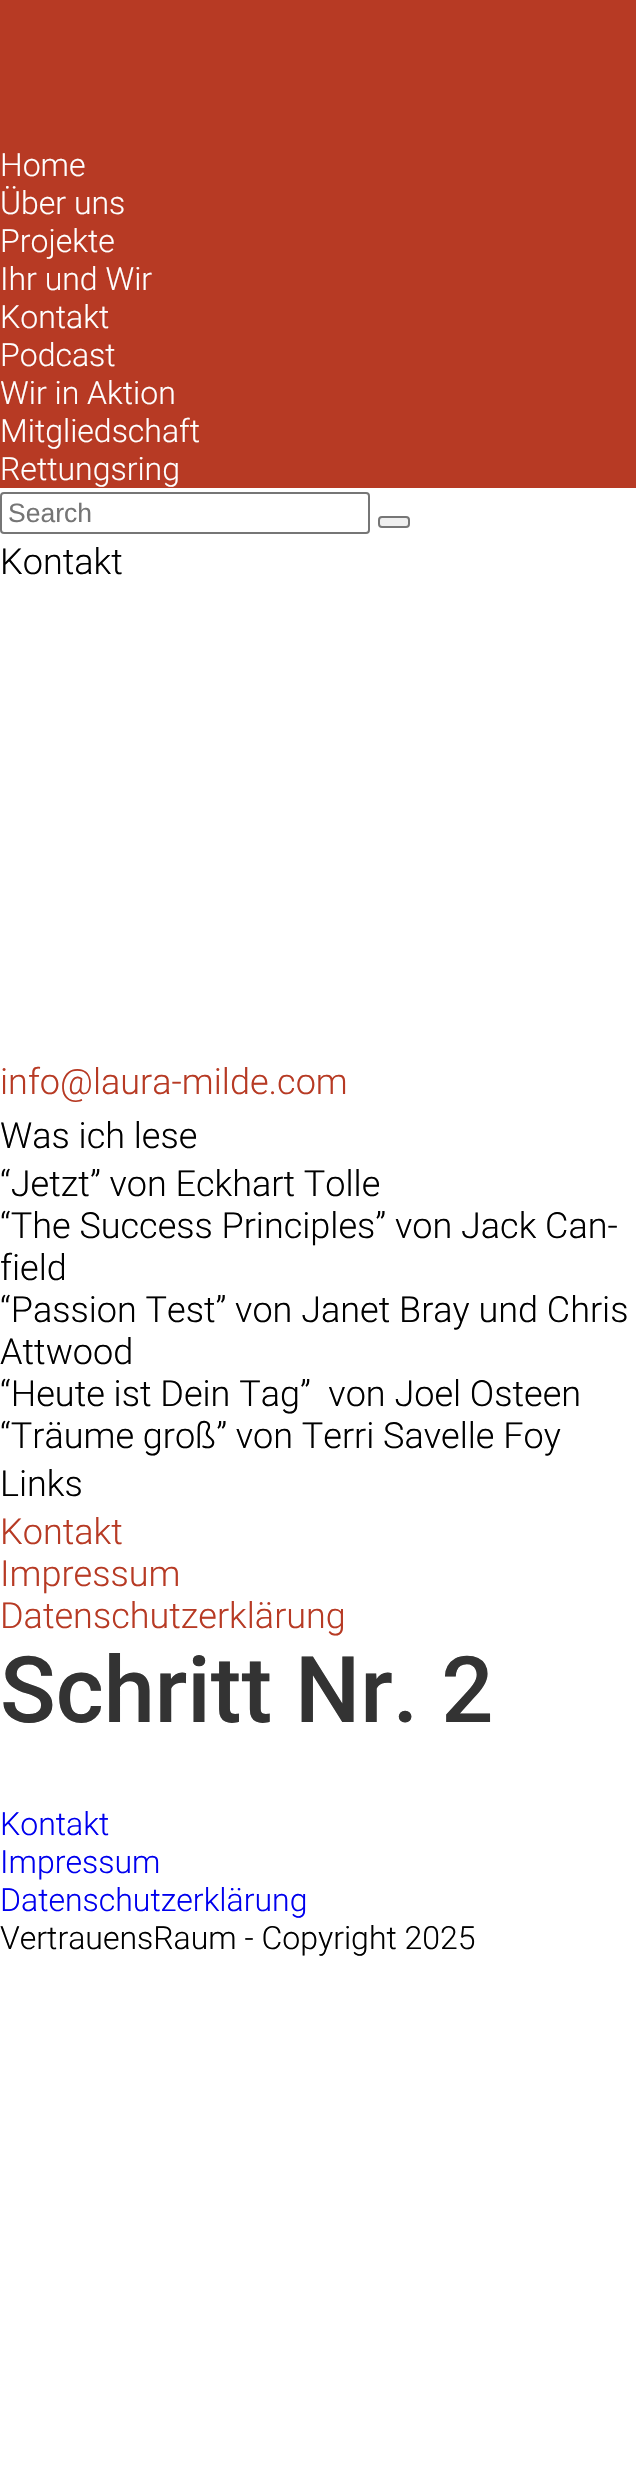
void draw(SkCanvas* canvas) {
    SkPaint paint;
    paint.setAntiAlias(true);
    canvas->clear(0xFFFFFFFF);
    paint.setColor(0xFFB73A24);
    canvas->drawRect(SkRect::MakeXYWH(0, 0, 636, 488), paint);
    SkFont font1(fontMgr->matchFamilyStyle("Roboto", SkFontStyle(300, SkFontStyle::kNormal_Width, SkFontStyle::kUpright_Slant)), 32);
    font1.setSubpixel(true);
    paint.setColor(0xFFFFFFFF);
    canvas->drawString("Home", 0, 176, font1, paint);
    canvas->drawString("Über uns", 0, 214, font1, paint);
    canvas->drawString("Projekte", 0, 252, font1, paint);
    canvas->drawString("Ihr und Wir", 0, 290, font1, paint);
    canvas->drawString("Kontakt", 0, 328, font1, paint);
    canvas->drawString("Podcast", 0, 366, font1, paint);
    canvas->drawString("Wir in Aktion", 0, 404, font1, paint);
    canvas->drawString("Mitgliedschaft", 0, 442, font1, paint);
    canvas->drawString("Rettungsring", 0, 480, font1, paint);
    paint.setStyle(SkPaint::kStroke_Style);
    paint.setStrokeWidth(2);
    paint.setColor(0xFF767676);
    canvas->drawRoundRect(SkRect::MakeXYWH(1, 493, 368, 40), 3, 3, paint);
    SkFont font2(fontMgr->matchFamilyStyle("Liberation Sans", SkFontStyle::Normal()), 26.5f);
    font2.setSubpixel(true);
    paint.setStyle(SkPaint::kFill_Style);
    paint.setColor(0xFF757575);
    canvas->drawString("Search", 8, 522, font2, paint);
    paint.setColor(0xFFEFEFEF);
    canvas->drawRoundRect(SkRect::MakeXYWH(379, 517, 30, 10), 3, 3, paint);
    paint.setStyle(SkPaint::kStroke_Style);
    paint.setColor(0xFF767676);
    canvas->drawRoundRect(SkRect::MakeXYWH(379, 517, 30, 10), 3, 3, paint);
    SkFont font3(fontMgr->matchFamilyStyle("Roboto", SkFontStyle(300, SkFontStyle::kNormal_Width, SkFontStyle::kUpright_Slant)), 36);
    font3.setSubpixel(true);
    paint.setStyle(SkPaint::kFill_Style);
    paint.setColor(0xFF000000);
    canvas->drawString("Kontakt", 0, 574, font3, paint);
    paint.setColor(0xFFB73A24);
    canvas->drawString("info@laura-milde.com", 0, 1094, font3, paint);
    paint.setColor(0xFF000000);
    canvas->drawString("Was ich lese", 0, 1148, font3, paint);
    canvas->drawString("“Jetzt” von Eckhart Tolle", 0, 1196, font3, paint);
    canvas->drawString("“The Success Principles” von Jack Can-", 0, 1238, font3, paint);
    canvas->drawString("field", 0, 1280, font3, paint);
    canvas->drawString("“Passion Test” von Janet Bray und Chris", 0, 1322, font3, paint);
    canvas->drawString("Attwood", 0, 1364, font3, paint);
    canvas->drawString("“Heute ist Dein Tag”  von Joel Osteen", 0, 1406, font3, paint);
    canvas->drawString("“Träume groß” von Terri Savelle Foy", 0, 1448, font3, paint);
    canvas->drawString("Links", 0, 1496, font3, paint);
    paint.setColor(0xFFB73A24);
    canvas->drawString("Kontakt", 0, 1544, font3, paint);
    canvas->drawString("Impressum", 0, 1586, font3, paint);
    canvas->drawString("Datenschutzerklärung", 0, 1628, font3, paint);
    SkFont font4(fontMgr->matchFamilyStyle("Roboto", SkFontStyle(500, SkFontStyle::kNormal_Width, SkFontStyle::kUpright_Slant)), 92);
    font4.setSubpixel(true);
    paint.setColor(0xFF333333);
    canvas->drawString("Schritt Nr. 2", 0, 1722, font4, paint);
    paint.setColor(0xFF0000EE);
    canvas->drawString("Kontakt", 0, 1835, font1, paint);
    canvas->drawString("Impressum", 0, 1873, font1, paint);
    canvas->drawString("Datenschutzerklärung", 0, 1911, font1, paint);
    paint.setColor(0xFF000000);
    canvas->drawString("VertrauensRaum - Copyright 2025", 0, 1949, font1, paint);
}
